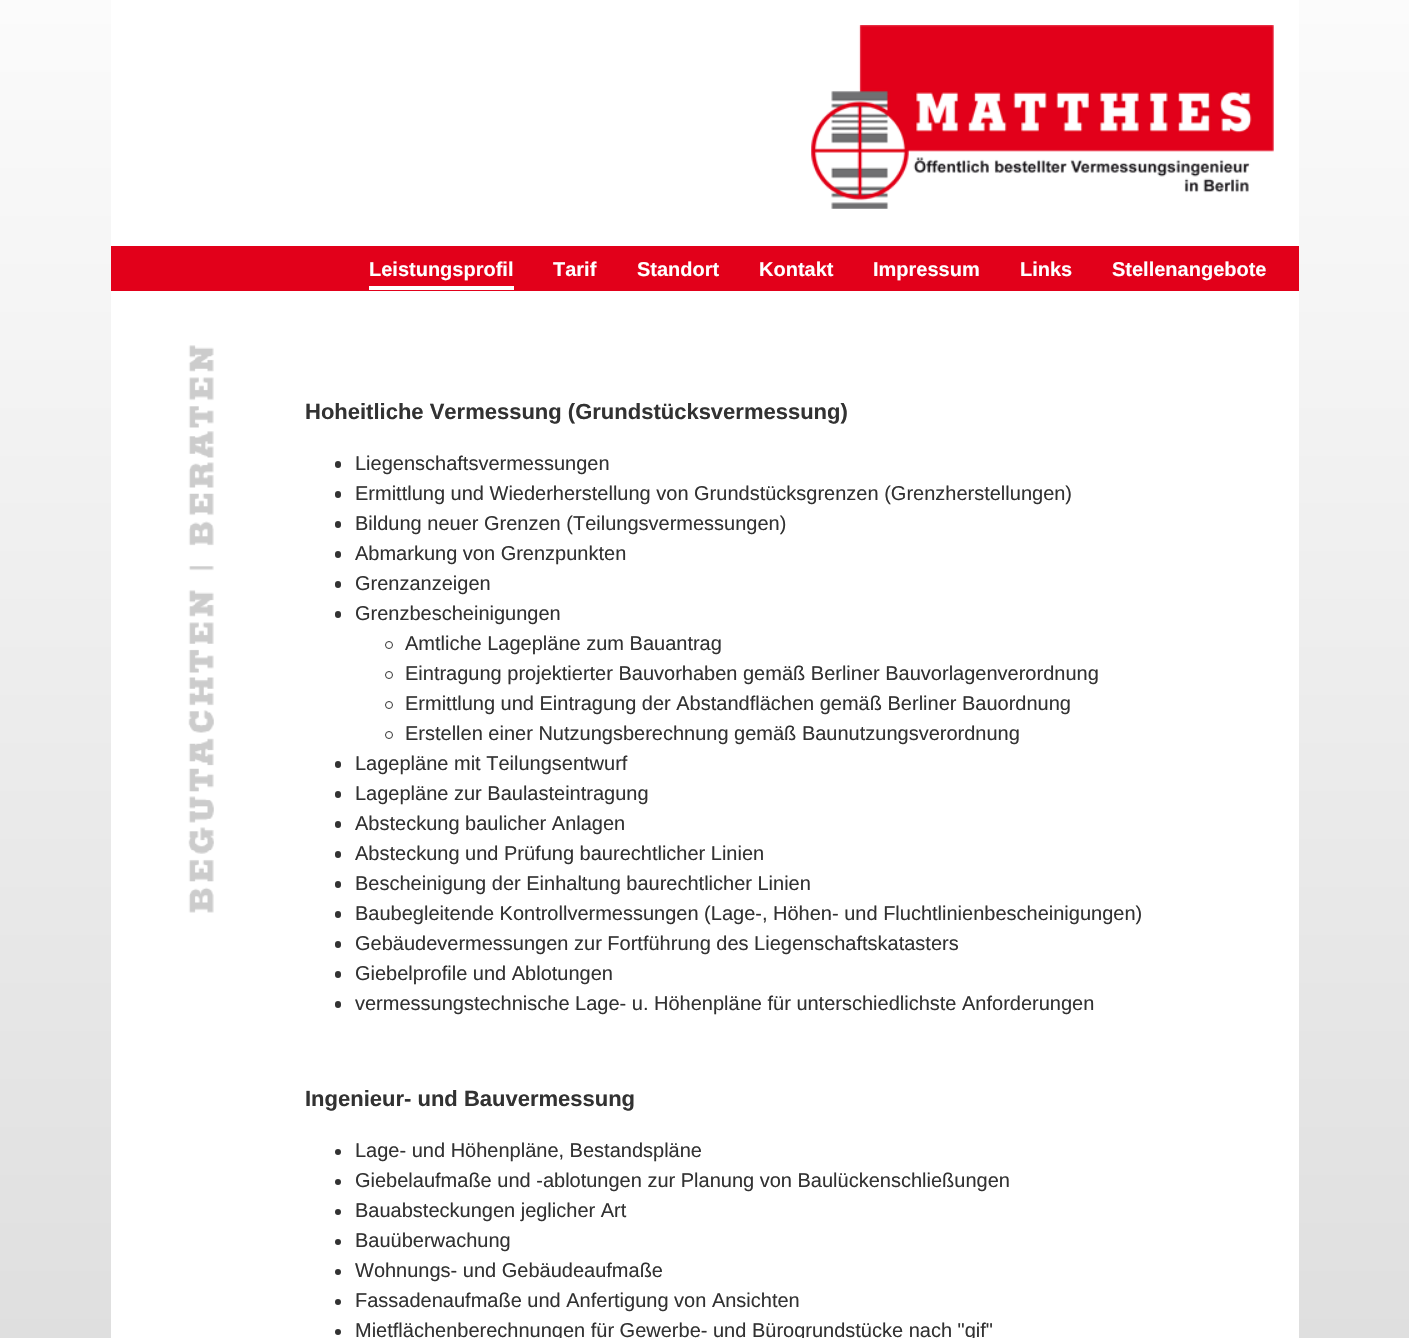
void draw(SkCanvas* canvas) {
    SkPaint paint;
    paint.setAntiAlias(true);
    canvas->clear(0xFFFFFFFF);
    {
        const SkColor colors[] = {0xFFFBFBFB, 0xFFD3D3D3};
        const float stops[] = {0, 1};
        const SkPoint ends[] = {{705, 0}, {705, 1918}};
        paint.setShader(SkGradientShader::MakeLinear(ends, colors, stops, 2, SkTileMode::kClamp));
        paint.setAlpha(255);
    }
    canvas->drawRect(SkRect::MakeXYWH(0, 0, 1409, 1338), paint);
    paint.setShader(nullptr);
    paint.setColor(0xFFFFFFFF);
    canvas->drawRect(SkRect::MakeXYWH(111, 0, 1188, 1338), paint);
    canvas->drawImageRect(SkImages::DeferredFromEncodedData(SkData::MakeFromFileName("img1.png")), SkRect::MakeXYWH(811, 25, 463, 184), SkSamplingOptions());
    paint.setColor(0xFFE2001A);
    canvas->drawRect(SkRect::MakeXYWH(111, 246, 1188, 45), paint);
    SkFont font1(fontMgr->matchFamilyStyle("Liberation Sans", SkFontStyle::Bold()), 20);
    font1.setSubpixel(true);
    paint.setColor(0xFFFFFFFF);
    canvas->drawString("Leistungsprofil", 369, 276, font1, paint);
    canvas->drawRect(SkRect::MakeXYWH(369, 286, 145, 4), paint);
    canvas->drawString("Tarif", 553, 276, font1, paint);
    canvas->drawString("Standort", 637, 276, font1, paint);
    canvas->drawString("Kontakt", 759, 276, font1, paint);
    canvas->drawString("Impressum", 873, 276, font1, paint);
    canvas->drawString("Links", 1020, 276, font1, paint);
    canvas->drawString("Stellenangebote", 1112, 276, font1, paint);
    canvas->drawImageRect(SkImages::DeferredFromEncodedData(SkData::MakeFromFileName("img2.png")), SkRect::MakeXYWH(188, 345, 26, 568), SkSamplingOptions());
    SkFont font2(fontMgr->matchFamilyStyle("Liberation Sans", SkFontStyle::Bold()), 22);
    font2.setSubpixel(true);
    paint.setColor(0xFF323232);
    canvas->drawString("Hoheitliche Vermessung (Grundstücksvermessung)", 305, 419, font2, paint);
    canvas->drawRoundRect(SkRect::MakeXYWH(335, 461, 6, 7), 3, 3, paint);
    SkFont font3(fontMgr->matchFamilyStyle("Liberation Sans", SkFontStyle::Normal()), 20);
    font3.setSubpixel(true);
    canvas->drawString("Liegenschaftsvermessungen", 355, 470, font3, paint);
    canvas->drawRoundRect(SkRect::MakeXYWH(335, 491, 6, 7), 3, 3, paint);
    canvas->drawString("Ermittlung und Wiederherstellung von Grundstücksgrenzen (Grenzherstellungen)", 355, 500, font3, paint);
    canvas->drawRoundRect(SkRect::MakeXYWH(335, 521, 6, 7), 3, 3, paint);
    canvas->drawString("Bildung neuer Grenzen (Teilungsvermessungen)", 355, 530, font3, paint);
    canvas->drawRoundRect(SkRect::MakeXYWH(335, 551, 6, 7), 3, 3, paint);
    canvas->drawString("Abmarkung von Grenzpunkten", 355, 560, font3, paint);
    canvas->drawRoundRect(SkRect::MakeXYWH(335, 581, 6, 7), 3, 3, paint);
    canvas->drawString("Grenzanzeigen", 355, 590, font3, paint);
    canvas->drawRoundRect(SkRect::MakeXYWH(335, 611, 6, 7), 3, 3, paint);
    canvas->drawString("Grenzbescheinigungen", 355, 620, font3, paint);
    paint.setStyle(SkPaint::kStroke_Style);
    paint.setStrokeWidth(1);
    canvas->drawCircle(389, 645, 3.5f, paint);
    paint.setStyle(SkPaint::kFill_Style);
    canvas->drawString("Amtliche Lagepläne zum Bauantrag", 405, 650, font3, paint);
    paint.setStyle(SkPaint::kStroke_Style);
    canvas->drawCircle(389, 675, 3.5f, paint);
    paint.setStyle(SkPaint::kFill_Style);
    canvas->drawString("Eintragung projektierter Bauvorhaben gemäß Berliner Bauvorlagenverordnung", 405, 680, font3, paint);
    paint.setStyle(SkPaint::kStroke_Style);
    canvas->drawCircle(389, 705, 3.5f, paint);
    paint.setStyle(SkPaint::kFill_Style);
    canvas->drawString("Ermittlung und Eintragung der Abstandflächen gemäß Berliner Bauordnung", 405, 710, font3, paint);
    paint.setStyle(SkPaint::kStroke_Style);
    canvas->drawCircle(389, 735, 3.5f, paint);
    paint.setStyle(SkPaint::kFill_Style);
    canvas->drawString("Erstellen einer Nutzungsberechnung gemäß Baunutzungsverordnung", 405, 740, font3, paint);
    canvas->drawRoundRect(SkRect::MakeXYWH(335, 761, 6, 7), 3, 3, paint);
    canvas->drawString("Lagepläne mit Teilungsentwurf", 355, 770, font3, paint);
    canvas->drawRoundRect(SkRect::MakeXYWH(335, 791, 6, 7), 3, 3, paint);
    canvas->drawString("Lagepläne zur Baulasteintragung", 355, 800, font3, paint);
    canvas->drawRoundRect(SkRect::MakeXYWH(335, 821, 6, 7), 3, 3, paint);
    canvas->drawString("Absteckung baulicher Anlagen", 355, 830, font3, paint);
    canvas->drawRoundRect(SkRect::MakeXYWH(335, 851, 6, 7), 3, 3, paint);
    canvas->drawString("Absteckung und Prüfung baurechtlicher Linien", 355, 860, font3, paint);
    canvas->drawRoundRect(SkRect::MakeXYWH(335, 881, 6, 7), 3, 3, paint);
    canvas->drawString("Bescheinigung der Einhaltung baurechtlicher Linien", 355, 890, font3, paint);
    canvas->drawRoundRect(SkRect::MakeXYWH(335, 911, 6, 7), 3, 3, paint);
    canvas->drawString("Baubegleitende Kontrollvermessungen (Lage-, Höhen- und Fluchtlinienbescheinigungen)", 355, 920, font3, paint);
    canvas->drawRoundRect(SkRect::MakeXYWH(335, 941, 6, 7), 3, 3, paint);
    canvas->drawString("Gebäudevermessungen zur Fortführung des Liegenschaftskatasters", 355, 950, font3, paint);
    canvas->drawRoundRect(SkRect::MakeXYWH(335, 971, 6, 7), 3, 3, paint);
    canvas->drawString("Giebelprofile und Ablotungen", 355, 980, font3, paint);
    canvas->drawRoundRect(SkRect::MakeXYWH(335, 1001, 6, 7), 3, 3, paint);
    canvas->drawString("vermessungstechnische Lage- u. Höhenpläne für unterschiedlichste Anforderungen", 355, 1010, font3, paint);
    canvas->drawString("Ingenieur- und Bauvermessung", 305, 1106, font2, paint);
    canvas->drawCircle(338, 1152, 3, paint);
    canvas->drawString("Lage- und Höhenpläne, Bestandspläne", 355, 1157, font3, paint);
    canvas->drawCircle(338, 1182, 3, paint);
    canvas->drawString("Giebelaufmaße und -ablotungen zur Planung von Baulückenschließungen", 355, 1187, font3, paint);
    canvas->drawCircle(338, 1212, 3, paint);
    canvas->drawString("Bauabsteckungen jeglicher Art", 355, 1217, font3, paint);
    canvas->drawCircle(338, 1242, 3, paint);
    canvas->drawString("Bauüberwachung", 355, 1247, font3, paint);
    canvas->drawCircle(338, 1272, 3, paint);
    canvas->drawString("Wohnungs- und Gebäudeaufmaße", 355, 1277, font3, paint);
    canvas->drawCircle(338, 1302, 3, paint);
    canvas->drawString("Fassadenaufmaße und Anfertigung von Ansichten", 355, 1307, font3, paint);
    canvas->drawCircle(338, 1332, 3, paint);
    canvas->drawString("Mietflächenberechnungen für Gewerbe- und Bürogrundstücke nach \"gif\"", 355, 1337, font3, paint);
}
